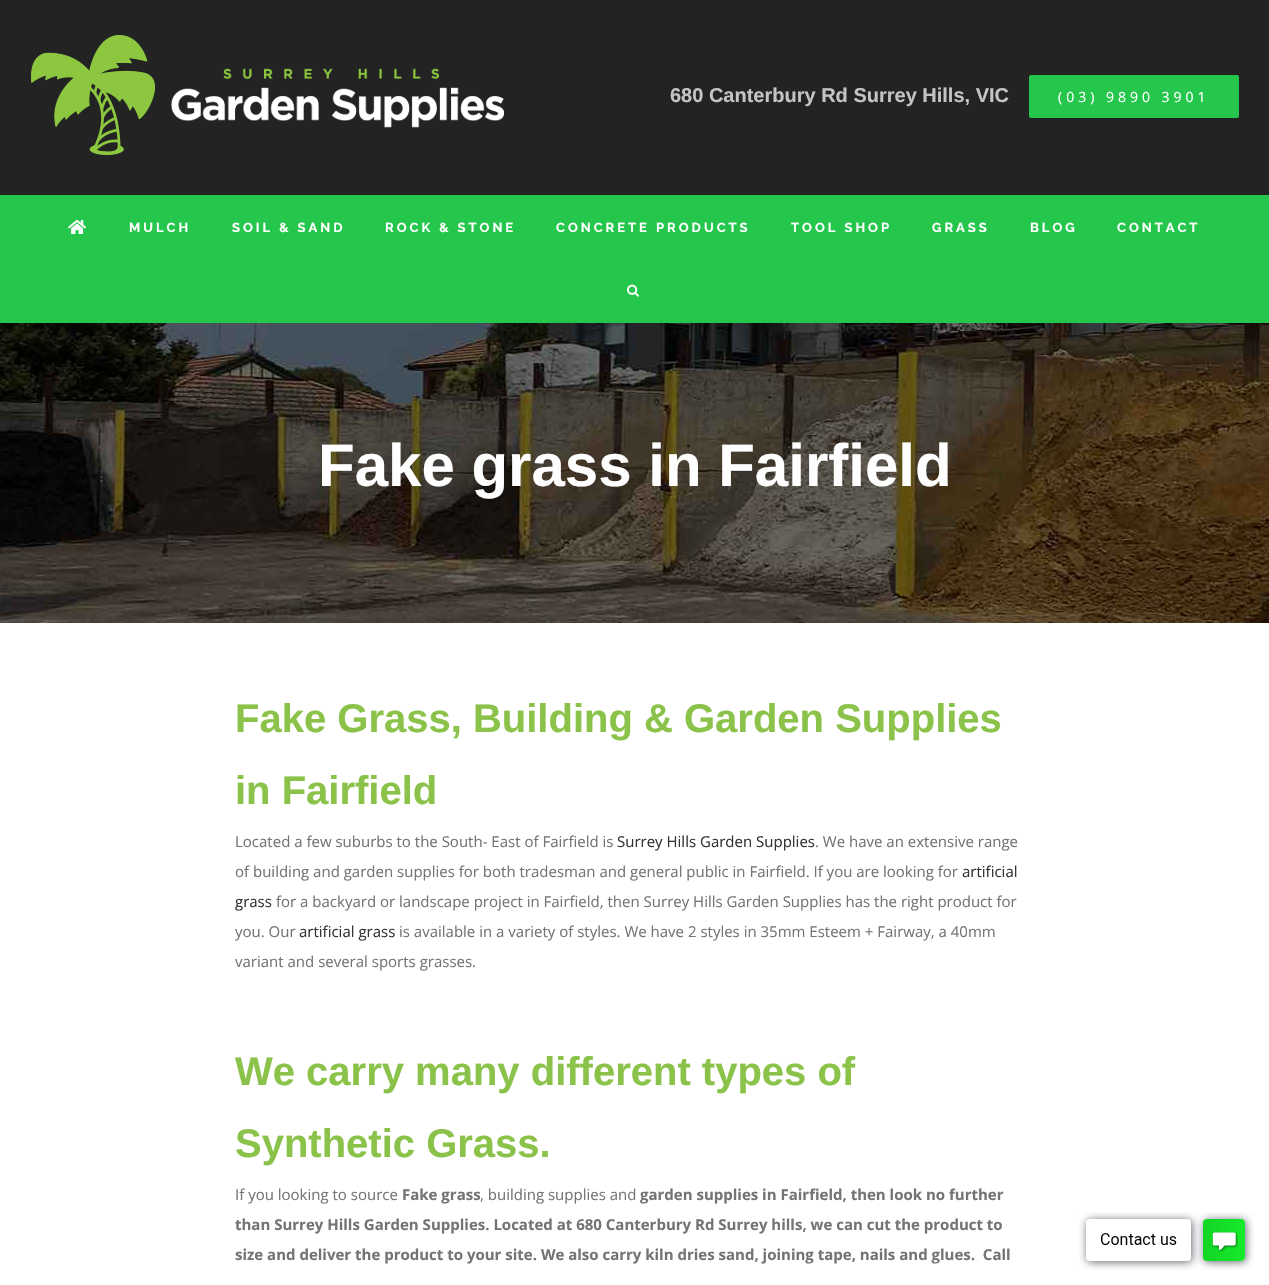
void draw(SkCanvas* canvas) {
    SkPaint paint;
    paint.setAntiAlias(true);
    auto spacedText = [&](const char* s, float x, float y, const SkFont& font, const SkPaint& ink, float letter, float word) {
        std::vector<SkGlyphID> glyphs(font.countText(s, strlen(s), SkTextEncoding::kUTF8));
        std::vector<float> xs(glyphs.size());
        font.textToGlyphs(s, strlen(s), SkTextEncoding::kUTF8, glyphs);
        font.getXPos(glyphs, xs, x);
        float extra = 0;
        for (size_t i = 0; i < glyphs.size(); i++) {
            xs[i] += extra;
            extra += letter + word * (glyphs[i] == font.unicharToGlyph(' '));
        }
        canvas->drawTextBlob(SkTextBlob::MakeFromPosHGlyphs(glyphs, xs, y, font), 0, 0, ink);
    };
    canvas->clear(0xFFFFFFFF);
    paint.setColor(0xFF232323);
    canvas->drawRect(SkRect::MakeXYWH(0, 0, 1269, 195), paint);
    canvas->drawImageRect(SkImages::DeferredFromEncodedData(SkData::MakeFromFileName("img1.png")), SkRect::MakeXYWH(31, 35, 473, 120), SkSamplingOptions());
    SkFont font1(fontMgr->matchFamilyStyle("Liberation Sans", SkFontStyle::Bold()), 20);
    font1.setSubpixel(true);
    paint.setColor(0xFFC4C4C4);
    canvas->drawString("680 Canterbury Rd Surrey Hills, VIC", 670, 102, font1, paint);
    paint.setColor(0xFF24C74C);
    canvas->drawRoundRect(SkRect::MakeXYWH(1029, 75, 210, 43), 2, 2, paint);
    SkFont font2(fontMgr->matchFamilyStyle("Open Sans", SkFontStyle::Normal()), 14);
    font2.setSubpixel(true);
    paint.setColor(0xFFFEFEFE);
    spacedText("(03) 9890 3901", 1058, 102, font2, paint, 4, 0);
    paint.setColor(0xFF24C74C);
    canvas->drawRect(SkRect::MakeXYWH(0, 195, 1269, 128), paint);
    canvas->drawImageRect(SkImages::DeferredFromEncodedData(SkData::MakeFromFileName("img2.png")), SkRect::MakeXYWH(68, 220, 18, 14), SkSamplingOptions());
    SkFont font3(fontMgr->matchFamilyStyle("Raleway", SkFontStyle::Bold()), 13);
    font3.setSubpixel(true);
    paint.setColor(0xFFFEFEFE);
    spacedText("MULCH", 129, 232, font3, paint, 3, 0);
    spacedText("SOIL & SAND", 232, 232, font3, paint, 3, 0);
    spacedText("ROCK & STONE", 385, 232, font3, paint, 3, 0);
    spacedText("CONCRETE PRODUCTS", 556, 232, font3, paint, 3, 0);
    spacedText("TOOL SHOP", 791, 232, font3, paint, 3, 0);
    spacedText("GRASS", 932, 232, font3, paint, 3, 0);
    spacedText("BLOG", 1030, 232, font3, paint, 3, 0);
    spacedText("CONTACT", 1117, 232, font3, paint, 3, 0);
    canvas->drawImageRect(SkImages::DeferredFromEncodedData(SkData::MakeFromFileName("img3.png")), SkRect::MakeXYWH(627, 284, 12, 13), SkSamplingOptions());
    canvas->drawImageRect(SkImages::DeferredFromEncodedData(SkData::MakeFromFileName("img4.png")), SkRect::MakeXYWH(0, 323, 1269, 300), SkSamplingOptions());
    SkFont font4(fontMgr->matchFamilyStyle("Liberation Sans", SkFontStyle::Bold()), 60);
    font4.setSubpixel(true);
    canvas->drawString("Fake grass in Fairfield", 318, 486, font4, paint);
    SkFont font5(fontMgr->matchFamilyStyle("Liberation Sans", SkFontStyle::Bold()), 40);
    font5.setSubpixel(true);
    paint.setColor(0xFF8BC34A);
    canvas->drawString("Fake Grass, Building & Garden Supplies", 235, 732, font5, paint);
    canvas->drawString("in Fairfield", 235, 804, font5, paint);
    SkFont font6(fontMgr->matchFamilyStyle("Open Sans", SkFontStyle::Normal()), 15);
    font6.setSubpixel(true);
    paint.setColor(0xFF747474);
    canvas->drawString("Located a few suburbs to the South- East of Fairfield is", 235, 847, font6, paint);
    paint.setColor(0xFF333333);
    canvas->drawString("Surrey Hills Garden Supplies", 617, 847, font6, paint);
    paint.setColor(0xFF747474);
    canvas->drawString(". We have an extensive range", 815, 847, font6, paint);
    canvas->drawString("of building and garden supplies for both tradesman and general public in Fairfield. If you are looking for", 235, 877, font6, paint);
    paint.setColor(0xFF333333);
    canvas->drawString("artificial", 962, 877, font6, paint);
    canvas->drawString("grass", 235, 907, font6, paint);
    paint.setColor(0xFF747474);
    canvas->drawString("for a backyard or landscape project in Fairfield, then Surrey Hills Garden Supplies has the right product for", 276, 907, font6, paint);
    canvas->drawString("you. Our", 235, 937, font6, paint);
    paint.setColor(0xFF333333);
    canvas->drawString("artificial grass", 299, 937, font6, paint);
    paint.setColor(0xFF747474);
    canvas->drawString("is available in a variety of styles. We have 2 styles in 35mm Esteem + Fairway, a 40mm", 399, 937, font6, paint);
    canvas->drawString("variant and several sports grasses.", 235, 967, font6, paint);
    paint.setColor(0xFF8BC34A);
    canvas->drawString("We carry many different types of", 235, 1085, font5, paint);
    canvas->drawString("Synthetic Grass.", 235, 1157, font5, paint);
    paint.setColor(0xFF747474);
    canvas->drawString("If you looking to source", 235, 1200, font6, paint);
    SkFont font7(fontMgr->matchFamilyStyle("Open Sans", SkFontStyle::Bold()), 15);
    font7.setSubpixel(true);
    canvas->drawString("Fake grass", 402, 1200, font7, paint);
    canvas->drawString(", building supplies and", 480, 1200, font6, paint);
    canvas->drawString("garden supplies in Fairfield, then look no further", 640, 1200, font7, paint);
    canvas->drawString("than Surrey Hills Garden Supplies. Located at 680 Canterbury Rd Surrey hills, we can cut the product to", 235, 1230, font7, paint);
    canvas->drawString("size and deliver the product to your site. We also carry kiln dries sand, joining tape, nails and glues.  Call", 235, 1260, font7, paint);
    canvas->drawImageRect(SkImages::DeferredFromEncodedData(SkData::MakeFromFileName("img5.png")), SkRect::MakeXYWH(1079, 1212, 175, 58), SkSamplingOptions());
}
